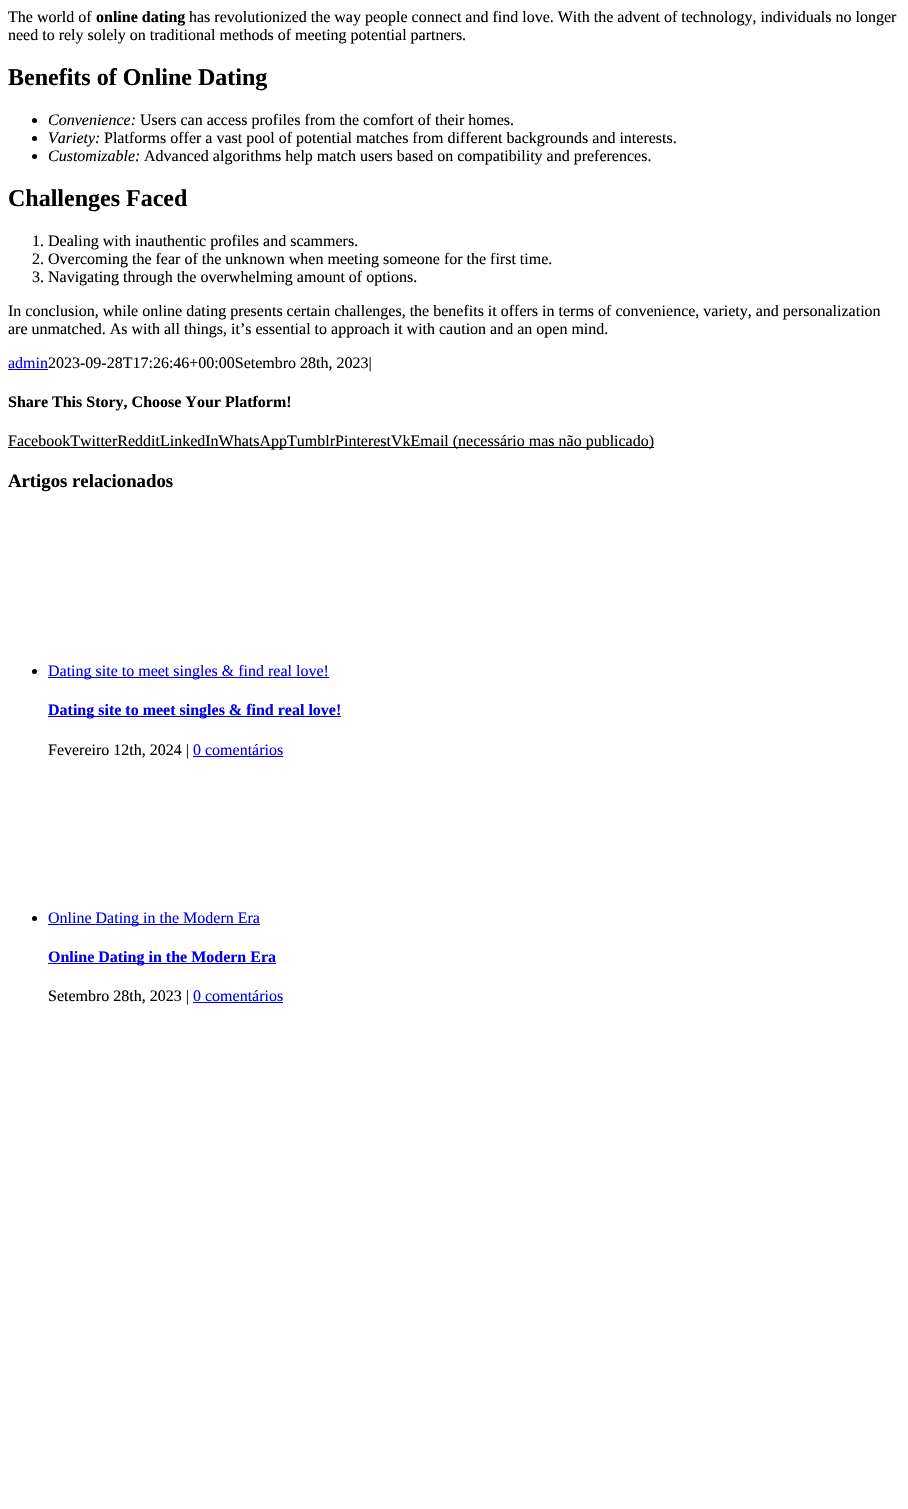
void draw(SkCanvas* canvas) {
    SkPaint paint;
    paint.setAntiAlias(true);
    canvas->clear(0xFFFFFFFF);
    SkFont font1(fontMgr->matchFamilyStyle("Liberation Serif", SkFontStyle::Normal()), 16);
    font1.setSubpixel(true);
    paint.setColor(0xFF000000);
    canvas->drawString("The world of", 8, 22, font1, paint);
    SkFont font2(fontMgr->matchFamilyStyle("Liberation Serif", SkFontStyle::Bold()), 16);
    font2.setSubpixel(true);
    canvas->drawString("online dating", 96, 22, font2, paint);
    canvas->drawString("has revolutionized the way people connect and find love. With the advent of technology, individuals no longer", 189, 22, font1, paint);
    canvas->drawString("need to rely solely on traditional methods of meeting potential partners.", 8, 40, font1, paint);
    SkFont font3(fontMgr->matchFamilyStyle("Liberation Serif", SkFontStyle::Bold()), 24);
    font3.setSubpixel(true);
    canvas->drawString("Benefits of Online Dating", 8, 85, font3, paint);
    canvas->drawCircle(34.5f, 120.5f, 2.5f, paint);
    SkFont font4(fontMgr->matchFamilyStyle("Liberation Serif", SkFontStyle::Italic()), 16);
    font4.setSubpixel(true);
    canvas->drawString("Convenience:", 48, 125, font4, paint);
    canvas->drawString("Users can access profiles from the comfort of their homes.", 140, 125, font1, paint);
    canvas->drawCircle(34.5f, 138.5f, 2.5f, paint);
    canvas->drawString("Variety:", 48, 143, font4, paint);
    canvas->drawString("Platforms offer a vast pool of potential matches from different backgrounds and interests.", 104, 143, font1, paint);
    canvas->drawCircle(34.5f, 156.5f, 2.5f, paint);
    canvas->drawString("Customizable:", 48, 161, font4, paint);
    canvas->drawString("Advanced algorithms help match users based on compatibility and preferences.", 144, 161, font1, paint);
    canvas->drawString("Challenges Faced", 8, 206, font3, paint);
    canvas->drawString("1. Dealing with inauthentic profiles and scammers.", 32, 246, font1, paint);
    canvas->drawString("2. Overcoming the fear of the unknown when meeting someone for the first time.", 32, 264, font1, paint);
    canvas->drawString("3. Navigating through the overwhelming amount of options.", 32, 282, font1, paint);
    canvas->drawString("In conclusion, while online dating presents certain challenges, the benefits it offers in terms of convenience, variety, and personalization", 8, 316, font1, paint);
    canvas->drawString("are unmatched. As with all things, it’s essential to approach it with caution and an open mind.", 8, 334, font1, paint);
    paint.setColor(0xFF0000EE);
    canvas->drawString("admin", 8, 368, font1, paint);
    canvas->drawRect(SkRect::MakeXYWH(8, 369, 40, 1), paint);
    paint.setColor(0xFF000000);
    canvas->drawString("2023-09-28T17:26:46+00:00Setembro 28th, 2023|", 48, 368, font1, paint);
    canvas->drawString("Share This Story, Choose Your Platform!", 8, 407, font2, paint);
    canvas->drawRect(SkRect::MakeXYWH(8, 447, 646, 1), paint);
    canvas->drawString("FacebookTwitterRedditLinkedInWhatsAppTumblrPinterestVkEmail (necessário mas não publicado)", 8, 446, font1, paint);
    SkFont font5(fontMgr->matchFamilyStyle("Liberation Serif", SkFontStyle::Bold()), 18.75f);
    font5.setSubpixel(true);
    canvas->drawString("Artigos relacionados", 8, 487, font5, paint);
    canvas->drawCircle(34.5f, 671.5f, 2.5f, paint);
    paint.setColor(0xFF0000EE);
    canvas->drawRect(SkRect::MakeXYWH(48, 677, 281, 1), paint);
    canvas->drawString("Dating site to meet singles & find real love!", 48, 676, font1, paint);
    canvas->drawRect(SkRect::MakeXYWH(48, 716, 293, 1), paint);
    canvas->drawString("Dating site to meet singles & find real love!", 48, 715, font2, paint);
    paint.setColor(0xFF000000);
    canvas->drawString("Fevereiro 12th, 2024 |", 48, 755, font1, paint);
    paint.setColor(0xFF0000EE);
    canvas->drawString("0 comentários", 193, 755, font1, paint);
    canvas->drawRect(SkRect::MakeXYWH(193, 756, 90, 1), paint);
    paint.setColor(0xFF000000);
    canvas->drawCircle(34.5f, 918.5f, 2.5f, paint);
    paint.setColor(0xFF0000EE);
    canvas->drawRect(SkRect::MakeXYWH(48, 924, 212, 1), paint);
    canvas->drawString("Online Dating in the Modern Era", 48, 923, font1, paint);
    canvas->drawRect(SkRect::MakeXYWH(48, 963, 228, 1), paint);
    canvas->drawString("Online Dating in the Modern Era", 48, 962, font2, paint);
    paint.setColor(0xFF000000);
    canvas->drawString("Setembro 28th, 2023 |", 48, 1001, font1, paint);
    paint.setColor(0xFF0000EE);
    canvas->drawString("0 comentários", 193, 1001, font1, paint);
    canvas->drawRect(SkRect::MakeXYWH(193, 1002, 90, 1), paint);
}
